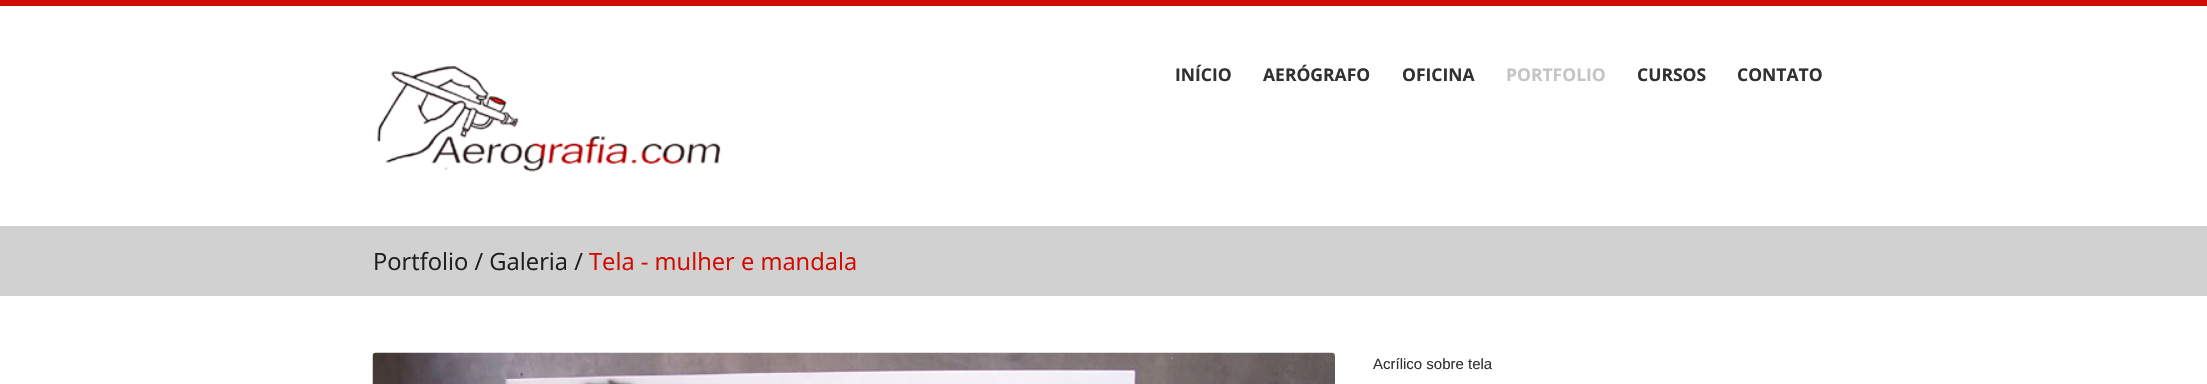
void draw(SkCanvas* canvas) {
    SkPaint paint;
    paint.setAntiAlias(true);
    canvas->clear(0xFFFFFFFF);
    paint.setColor(0xFFD00B01);
    canvas->drawRect(SkRect::MakeXYWH(0, 0, 2207, 6), paint);
    canvas->drawImageRect(SkImages::DeferredFromEncodedData(SkData::MakeFromFileName("img1.png")), SkRect::MakeXYWH(377, 65, 344, 107), SkSamplingOptions());
    SkFont font1(fontMgr->matchFamilyStyle("Open Sans", SkFontStyle::Bold()), 17.5f);
    font1.setSubpixel(true);
    paint.setColor(0xFF313131);
    canvas->drawString("INÍCIO", 1175, 81, font1, paint);
    canvas->drawString("AERÓGRAFO", 1263, 81, font1, paint);
    canvas->drawString("OFICINA", 1402, 81, font1, paint);
    paint.setColor(0xFFC5C5C5);
    canvas->drawString("PORTFOLIO", 1506, 81, font1, paint);
    paint.setColor(0xFF313131);
    canvas->drawString("CURSOS", 1637, 81, font1, paint);
    canvas->drawString("CONTATO", 1737, 81, font1, paint);
    paint.setColor(0xFFD1D1D1);
    canvas->drawRect(SkRect::MakeXYWH(0, 226, 2207, 70), paint);
    SkFont font2(fontMgr->matchFamilyStyle("Open Sans", SkFontStyle::Normal()), 23.75f);
    font2.setSubpixel(true);
    paint.setColor(0xFF1E1E1E);
    canvas->drawString("Portfolio / Galeria /", 373, 270, font2, paint);
    paint.setColor(0xFFD00B01);
    canvas->drawString("Tela - mulher e mandala", 589, 270, font2, paint);
    canvas->drawImageRect(SkImages::DeferredFromEncodedData(SkData::MakeFromFileName("img2.png")), SkRect::MakeXYWH(372, 352, 963, 32), SkSamplingOptions());
    SkFont font3(fontMgr->matchFamilyStyle("Liberation Sans", SkFontStyle::Normal()), 15);
    font3.setSubpixel(true);
    paint.setColor(0xFF313131);
    canvas->drawString("Acrílico sobre tela", 1373, 369, font3, paint);
}
